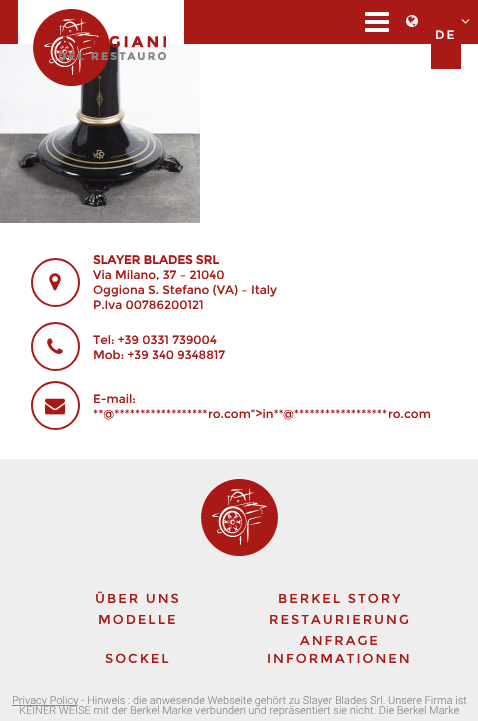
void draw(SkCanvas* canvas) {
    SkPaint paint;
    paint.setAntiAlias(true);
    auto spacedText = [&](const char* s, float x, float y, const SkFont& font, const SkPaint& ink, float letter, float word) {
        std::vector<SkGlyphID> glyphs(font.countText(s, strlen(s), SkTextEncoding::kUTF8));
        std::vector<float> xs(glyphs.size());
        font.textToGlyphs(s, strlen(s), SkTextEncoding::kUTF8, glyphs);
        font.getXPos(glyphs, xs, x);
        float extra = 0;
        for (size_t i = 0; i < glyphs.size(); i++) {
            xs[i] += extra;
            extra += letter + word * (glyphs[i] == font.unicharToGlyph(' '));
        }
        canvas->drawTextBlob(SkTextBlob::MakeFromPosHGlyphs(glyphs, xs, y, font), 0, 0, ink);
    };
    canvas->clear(0xFFFFFFFF);
    paint.setColor(0xFFA91A16);
    canvas->drawRect(SkRect::MakeXYWH(0, 0, 478, 44), paint);
    paint.setColor(0xFFFFFFFF);
    canvas->drawRect(SkRect::MakeXYWH(18, 0, 166, 44), paint);
    canvas->drawImageRect(SkImages::DeferredFromEncodedData(SkData::MakeFromFileName("img6.png")), SkRect::MakeXYWH(0, 44, 200, 179), SkSamplingOptions());
    canvas->drawImageRect(SkImages::DeferredFromEncodedData(SkData::MakeFromFileName("img1.png")), SkRect::MakeXYWH(33, 9, 77, 77), SkSamplingOptions());
    canvas->drawImageRect(SkImages::DeferredFromEncodedData(SkData::MakeFromFileName("img2.png")), SkRect::MakeXYWH(59, 36, 107, 24), SkSamplingOptions());
    canvas->drawImageRect(SkImages::DeferredFromEncodedData(SkData::MakeFromFileName("img3.png")), SkRect::MakeXYWH(365, 12, 24, 20), SkSamplingOptions());
    canvas->drawImageRect(SkImages::DeferredFromEncodedData(SkData::MakeFromFileName("img4.png")), SkRect::MakeXYWH(406, 15, 12, 12), SkSamplingOptions());
    canvas->drawImageRect(SkImages::DeferredFromEncodedData(SkData::MakeFromFileName("img5.png")), SkRect::MakeXYWH(461, 19, 9, 5), SkSamplingOptions());
    paint.setColor(0xFFA91A16);
    canvas->drawRect(SkRect::MakeXYWH(431, 44, 30, 25), paint);
    SkFont font1(fontMgr->matchFamilyStyle("Montserrat", SkFontStyle::Normal()), 12);
    font1.setSubpixel(true);
    paint.setColor(0xFFFFFFFF);
    spacedText("DE", 435, 39, font1, paint, 2, 0);
    paint.setStyle(SkPaint::kStroke_Style);
    paint.setStrokeWidth(2);
    paint.setColor(0xFFA91A16);
    canvas->drawCircle(55.5f, 282.5f, 23.5f, paint);
    canvas->drawImageRect(SkImages::DeferredFromEncodedData(SkData::MakeFromFileName("img7.png")), SkRect::MakeXYWH(49, 273, 12, 18), SkSamplingOptions());
    SkFont font2(fontMgr->matchFamilyStyle("Montserrat", SkFontStyle::Bold()), 12);
    font2.setSubpixel(true);
    paint.setStyle(SkPaint::kFill_Style);
    canvas->drawString("SLAYER BLADES SRL", 93, 264, font2, paint);
    canvas->drawString("Via Milano, 37 – 21040", 93, 279, font1, paint);
    canvas->drawString("Oggiona S. Stefano (VA) – Italy", 93, 294, font1, paint);
    canvas->drawString("P.Iva 00786200121", 93, 309, font1, paint);
    paint.setStyle(SkPaint::kStroke_Style);
    canvas->drawCircle(55.5f, 346.5f, 23.5f, paint);
    canvas->drawImageRect(SkImages::DeferredFromEncodedData(SkData::MakeFromFileName("img8.png")), SkRect::MakeXYWH(47, 338, 16, 16), SkSamplingOptions());
    paint.setStyle(SkPaint::kFill_Style);
    canvas->drawString("Tel: +39 0331 739004", 93, 344, font1, paint);
    canvas->drawString("Mob: +39 340 9348817", 93, 359, font1, paint);
    paint.setStyle(SkPaint::kStroke_Style);
    canvas->drawCircle(55.5f, 405.5f, 23.5f, paint);
    canvas->drawImageRect(SkImages::DeferredFromEncodedData(SkData::MakeFromFileName("img9.png")), SkRect::MakeXYWH(45, 398, 20, 17), SkSamplingOptions());
    paint.setStyle(SkPaint::kFill_Style);
    canvas->drawString("E-mail:", 93, 403, font1, paint);
    canvas->drawString("**@******************", 93, 418, font1, paint);
    canvas->drawString("ro.com“>in**", 208, 418, font1, paint);
    canvas->drawString("@******************", 283, 418, font1, paint);
    canvas->drawString("ro.com", 388, 418, font1, paint);
    paint.setColor(0xFFEEEEEE);
    canvas->drawRect(SkRect::MakeXYWH(0, 459, 478, 262), paint);
    canvas->drawImageRect(SkImages::DeferredFromEncodedData(SkData::MakeFromFileName("img10.png")), SkRect::MakeXYWH(201, 479, 77, 77), SkSamplingOptions());
    SkFont font3(fontMgr->matchFamilyStyle("Montserrat", SkFontStyle::Normal()), 13);
    font3.setSubpixel(true);
    paint.setColor(0xFFA91A16);
    spacedText("ÜBER UNS", 95, 603, font3, paint, 2, 0);
    spacedText("BERKEL STORY", 278, 603, font3, paint, 2, 0);
    spacedText("MODELLE", 98, 624, font3, paint, 2, 0);
    spacedText("RESTAURIERUNG", 269, 624, font3, paint, 2, 0);
    spacedText("SOCKEL", 105, 663, font3, paint, 2, 0);
    spacedText("ANFRAGE", 300, 645, font3, paint, 2, 0);
    spacedText("INFORMATIONEN", 267, 663, font3, paint, 2, 0);
    paint.setColor(0xFF868686);
    canvas->drawRect(SkRect::MakeXYWH(12, 705, 66, 1), paint);
    SkFont font4(fontMgr->matchFamilyStyle("Roboto", SkFontStyle(300, SkFontStyle::kNormal_Width, SkFontStyle::kUpright_Slant)), 11);
    font4.setSubpixel(true);
    canvas->drawString("Privacy Policy - Hinweis : die anwesende Webseite gehört zu Slayer Blades Srl. Unsere Firma ist", 12, 704, font4, paint);
    canvas->drawString("KEINER WEISE mit der Berkel Marke verbunden und repräsentiert sie nicht. Die Berkel Marke", 19, 714, font4, paint);
}
